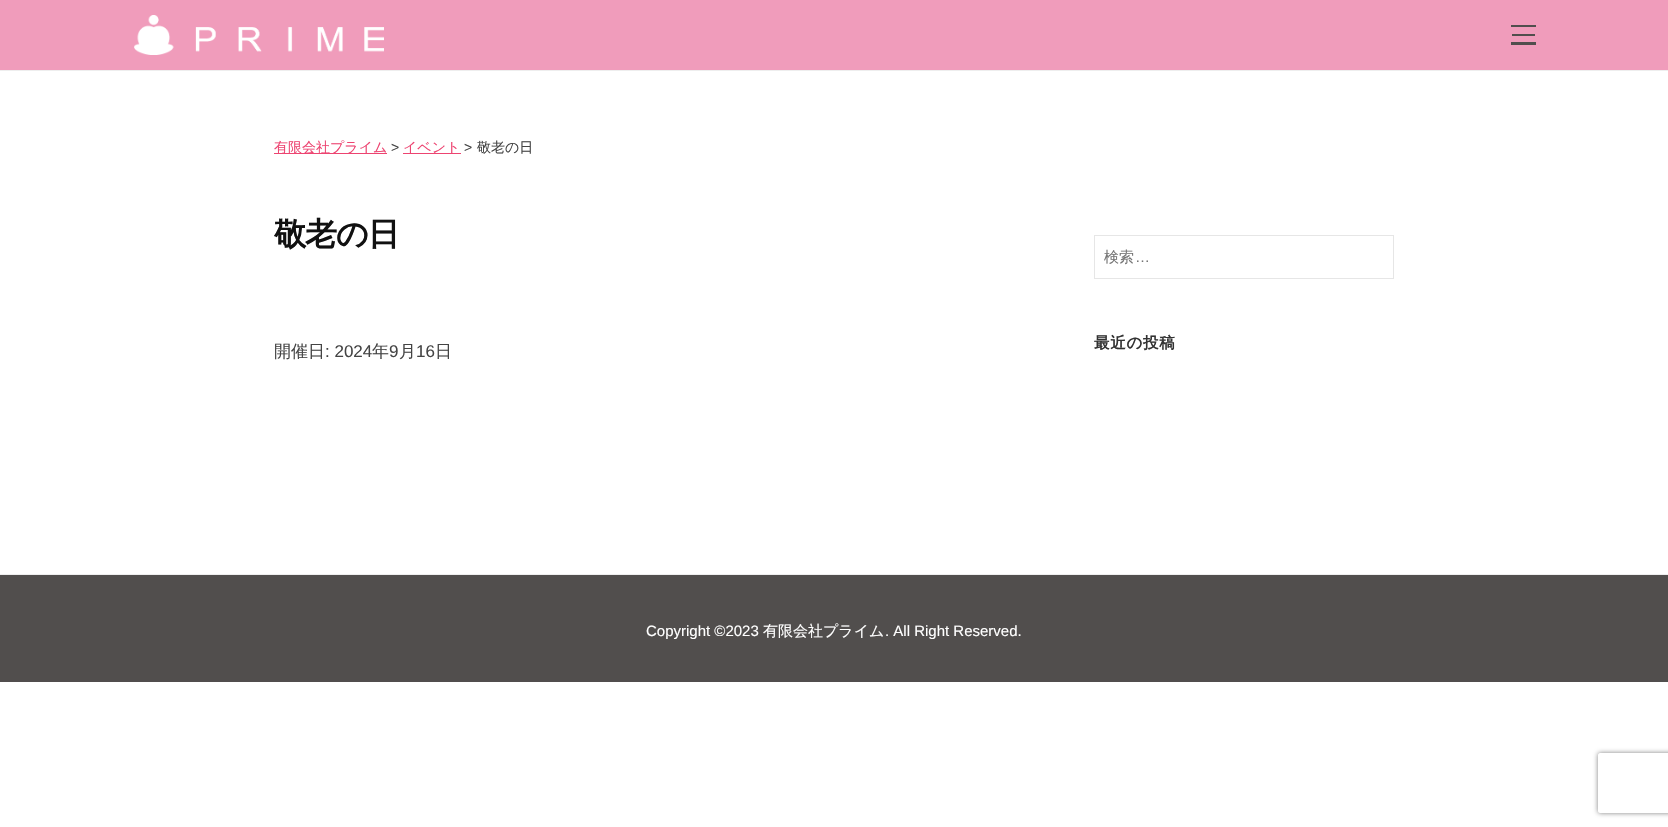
void draw(SkCanvas* canvas) {
    SkPaint paint;
    paint.setAntiAlias(true);
    auto spacedText = [&](const char* s, float x, float y, const SkFont& font, const SkPaint& ink, float letter, float word) {
        std::vector<SkGlyphID> glyphs(font.countText(s, strlen(s), SkTextEncoding::kUTF8));
        std::vector<float> xs(glyphs.size());
        font.textToGlyphs(s, strlen(s), SkTextEncoding::kUTF8, glyphs);
        font.getXPos(glyphs, xs, x);
        float extra = 0;
        for (size_t i = 0; i < glyphs.size(); i++) {
            xs[i] += extra;
            extra += letter + word * (glyphs[i] == font.unicharToGlyph(' '));
        }
        canvas->drawTextBlob(SkTextBlob::MakeFromPosHGlyphs(glyphs, xs, y, font), 0, 0, ink);
    };
    canvas->clear(0xFFFFFFFF);
    paint.setColor(0xFFEEEEEE);
    canvas->drawRect(SkRect::MakeXYWH(0, 70, 1668, 1), paint);
    paint.setColor(0xFFF09CBB);
    canvas->drawRect(SkRect::MakeXYWH(0, 0, 1668, 70), paint);
    canvas->drawImageRect(SkImages::DeferredFromEncodedData(SkData::MakeFromFileName("img1.png")), SkRect::MakeXYWH(134, 15, 250, 40), SkSamplingOptions());
    paint.setColor(0xFF514E4D);
    canvas->drawRect(SkRect::MakeXYWH(1512, 34, 23, 2), paint);
    canvas->drawRect(SkRect::MakeXYWH(1511, 25, 25, 2), paint);
    canvas->drawRect(SkRect::MakeXYWH(1511, 42, 25, 3), paint);
    paint.setColor(0xFFED4471);
    canvas->drawRect(SkRect::MakeXYWH(274, 153, 113, 1), paint);
    SkFont font1(fontMgr->matchFamilyStyle("WenQuanYi Zen Hei", SkFontStyle(500, SkFontStyle::kNormal_Width, SkFontStyle::kUpright_Slant)), 14);
    font1.setSubpixel(true);
    canvas->drawString("有限会社プライム", 274, 152, font1, paint);
    SkFont font2(fontMgr->matchFamilyStyle("Liberation Sans", SkFontStyle::Normal()), 14);
    font2.setSubpixel(true);
    paint.setColor(0xFF444444);
    canvas->drawString(">", 391, 152, font2, paint);
    paint.setColor(0xFFED4471);
    canvas->drawRect(SkRect::MakeXYWH(403, 153, 58, 1), paint);
    canvas->drawString("イベント", 403, 152, font1, paint);
    paint.setColor(0xFF444444);
    canvas->drawString(">", 464, 152, font2, paint);
    canvas->drawString("敬老の日", 477, 152, font1, paint);
    SkFont font3(fontMgr->matchFamilyStyle("WenQuanYi Zen Hei", SkFontStyle::Bold()), 32);
    font3.setSubpixel(true);
    paint.setColor(0xFF111111);
    spacedText("敬老の日", 274, 245, font3, paint, -1, 0);
    SkFont font4(fontMgr->matchFamilyStyle("WenQuanYi Zen Hei", SkFontStyle(500, SkFontStyle::kNormal_Width, SkFontStyle::kUpright_Slant)), 17);
    font4.setSubpixel(true);
    paint.setColor(0xFF444444);
    canvas->drawString("開催日", 274, 357, font4, paint);
    SkFont font5(fontMgr->matchFamilyStyle("Liberation Sans", SkFontStyle::Normal()), 17);
    font5.setSubpixel(true);
    canvas->drawString(": 2024", 325, 357, font5, paint);
    canvas->drawString("年", 372, 357, font4, paint);
    canvas->drawString("9", 389, 357, font5, paint);
    canvas->drawString("月", 399, 357, font4, paint);
    canvas->drawString("16", 416, 357, font5, paint);
    canvas->drawString("日", 435, 357, font4, paint);
    paint.setStyle(SkPaint::kStroke_Style);
    paint.setStrokeWidth(1);
    paint.setColor(0xFFE6E6E6);
    canvas->drawRect(SkRect::MakeXYWH(1094.5f, 235.5f, 299, 43), paint);
    SkFont font6(fontMgr->matchFamilyStyle("WenQuanYi Zen Hei", SkFontStyle(500, SkFontStyle::kNormal_Width, SkFontStyle::kUpright_Slant)), 15);
    font6.setSubpixel(true);
    paint.setStyle(SkPaint::kFill_Style);
    paint.setColor(0xFF757575);
    canvas->drawString("検索", 1104, 262, font6, paint);
    SkFont font7(fontMgr->matchFamilyStyle("Liberation Sans", SkFontStyle::Normal()), 15);
    font7.setSubpixel(true);
    canvas->drawString("…", 1135, 262, font7, paint);
    SkFont font8(fontMgr->matchFamilyStyle("WenQuanYi Zen Hei", SkFontStyle::Bold()), 15.5f);
    font8.setSubpixel(true);
    paint.setColor(0xFF333333);
    spacedText("最近の投稿", 1094, 348, font8, paint, 0.75f, 0);
    paint.setColor(0xFF514E4D);
    canvas->drawRect(SkRect::MakeXYWH(0, 575, 1668, 107), paint);
    paint.setColor(0xFFEEEEEE);
    canvas->drawRect(SkRect::MakeXYWH(0, 574, 1668, 1), paint);
    paint.setColor(0xFFFFFFFF);
    canvas->drawString("Copyright ©2023", 646, 636, font7, paint);
    canvas->drawString("有限会社プライム", 763, 636, font6, paint);
    canvas->drawString(". All Right Reserved.", 885, 636, font7, paint);
    canvas->save();
    canvas->clipPath(SkPathBuilder(SkPathFillType::kEvenOdd).moveTo(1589, 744).lineTo(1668, 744).lineTo(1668, 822).lineTo(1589, 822).close().moveTo(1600, 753).lineTo(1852, 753).cubicTo(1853, 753, 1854, 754, 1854, 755).lineTo(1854, 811).cubicTo(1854, 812, 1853, 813, 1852, 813).lineTo(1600, 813).cubicTo(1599, 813, 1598, 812, 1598, 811).lineTo(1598, 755).cubicTo(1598, 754, 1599, 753, 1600, 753).close().detach(), true);
    paint.setColor(0xFF808080);
    paint.setMaskFilter(SkMaskFilter::MakeBlur(kNormal_SkBlurStyle, 2.5f));
    canvas->drawRoundRect(SkRect::MakeXYWH(1598, 753, 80, 60), 2, 2, paint);
    paint.setMaskFilter(nullptr);
    canvas->restore();
}
